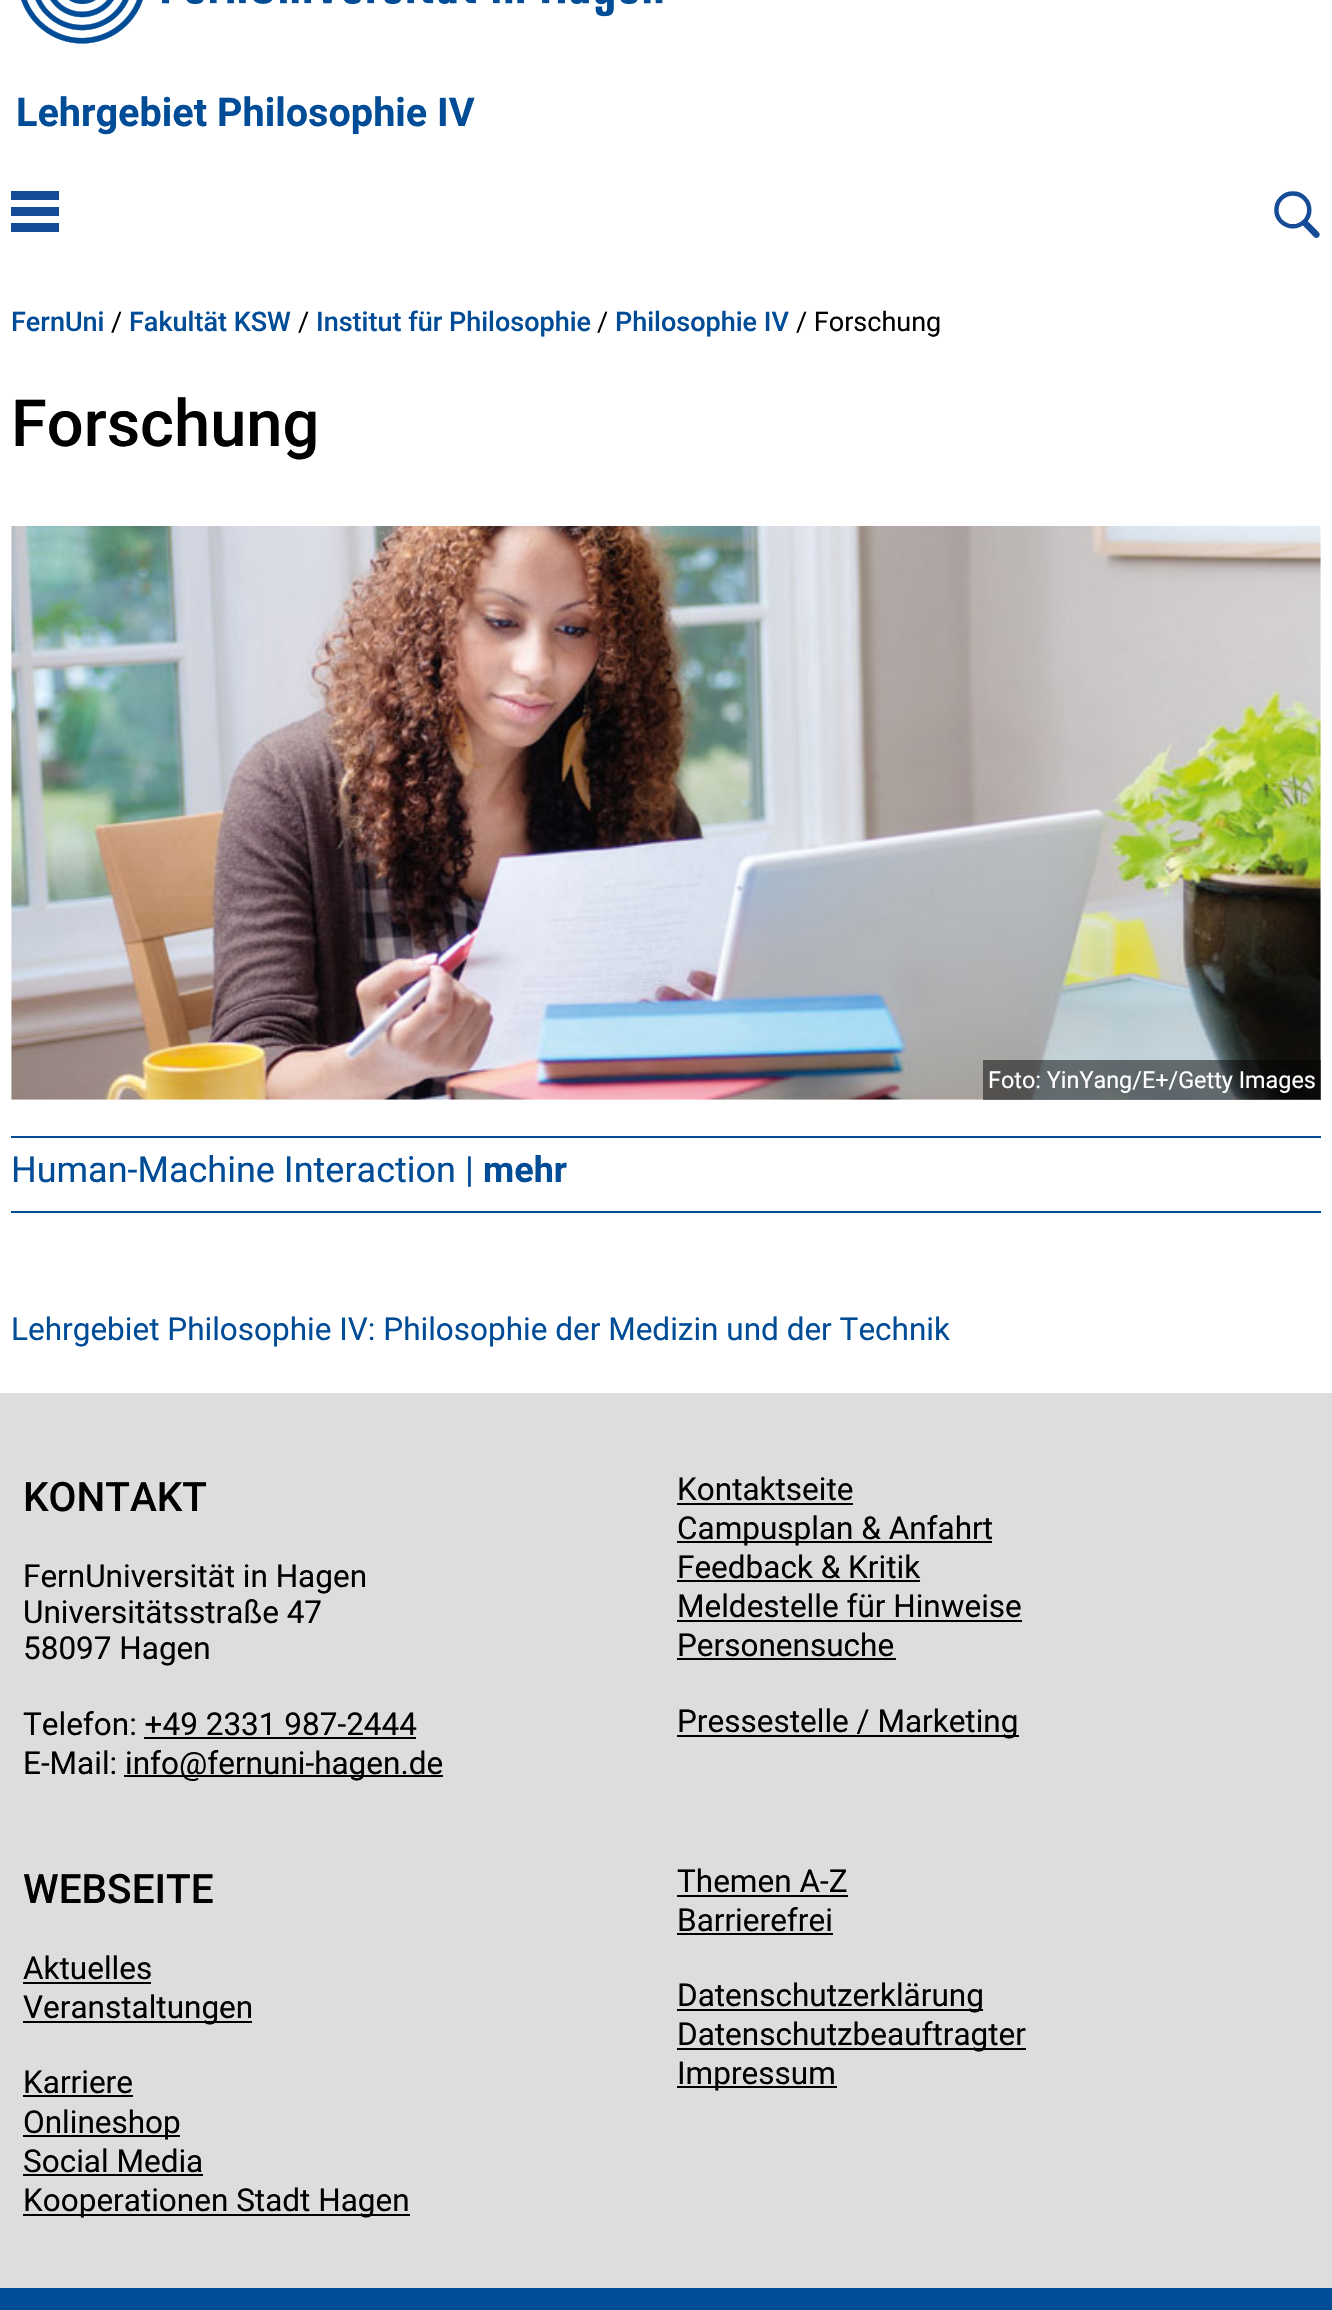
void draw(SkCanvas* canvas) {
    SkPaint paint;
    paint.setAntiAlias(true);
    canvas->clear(0xFFFFFFFF);
    canvas->drawImageRect(SkImages::DeferredFromEncodedData(SkData::MakeFromFileName("img1.png")), SkRect::MakeXYWH(21, 0, 642, 44), SkSamplingOptions());
    SkFont font1(fontMgr->matchFamilyStyle("Roboto", SkFontStyle::Bold()), 39.6f);
    font1.setSubpixel(true);
    paint.setColor(0xFF004C97);
    canvas->drawString("Lehrgebiet Philosophie IV", 16, 126, font1, paint);
    paint.setColor(0xFF164C97);
    canvas->drawRect(SkRect::MakeXYWH(11, 191, 48, 9), paint);
    canvas->drawRect(SkRect::MakeXYWH(11, 207, 48, 9), paint);
    canvas->drawRect(SkRect::MakeXYWH(11, 223, 48, 9), paint);
    canvas->drawImageRect(SkImages::DeferredFromEncodedData(SkData::MakeFromFileName("img2.png")), SkRect::MakeXYWH(1274, 191, 46, 47), SkSamplingOptions());
    SkFont font2(fontMgr->matchFamilyStyle("Roboto", SkFontStyle(500, SkFontStyle::kNormal_Width, SkFontStyle::kUpright_Slant)), 27);
    font2.setSubpixel(true);
    paint.setColor(0xFF004C97);
    canvas->drawString("FernUni", 11, 331, font2, paint);
    SkFont font3(fontMgr->matchFamilyStyle("Roboto", SkFontStyle::Normal()), 27);
    font3.setSubpixel(true);
    paint.setColor(0xFF000000);
    canvas->drawString("/", 111, 331, font3, paint);
    paint.setColor(0xFF004C97);
    canvas->drawString("Fakultät KSW", 129, 331, font2, paint);
    paint.setColor(0xFF000000);
    canvas->drawString("/", 298, 331, font3, paint);
    paint.setColor(0xFF004C97);
    canvas->drawString("Institut für Philosophie", 316, 331, font2, paint);
    paint.setColor(0xFF000000);
    canvas->drawString("/", 597, 331, font3, paint);
    paint.setColor(0xFF004C97);
    canvas->drawString("Philosophie IV", 615, 331, font2, paint);
    paint.setColor(0xFF000000);
    canvas->drawString("/ Forschung", 796, 331, font3, paint);
    SkFont font4(fontMgr->matchFamilyStyle("Roboto", SkFontStyle(500, SkFontStyle::kNormal_Width, SkFontStyle::kUpright_Slant)), 65);
    font4.setSubpixel(true);
    canvas->drawString("Forschung", 11, 446, font4, paint);
    canvas->drawImageRect(SkImages::DeferredFromEncodedData(SkData::MakeFromFileName("img3.png")), SkRect::MakeXYWH(11, 526, 1310, 574), SkSamplingOptions());
    paint.setColor(0x80000000);
    canvas->drawRect(SkRect::MakeXYWH(983, 1060, 338, 40), paint);
    SkFont font5(fontMgr->matchFamilyStyle("Roboto", SkFontStyle::Normal()), 23.4f);
    font5.setSubpixel(true);
    paint.setColor(0xFFFFFFFF);
    canvas->drawString("Foto: YinYang/E+/Getty Images", 988, 1088, font5, paint);
    paint.setColor(0xFF004C97);
    canvas->drawRect(SkRect::MakeXYWH(11, 1136, 1310, 2), paint);
    canvas->drawRect(SkRect::MakeXYWH(11, 1211, 1310, 2), paint);
    SkFont font6(fontMgr->matchFamilyStyle("Roboto", SkFontStyle::Normal()), 36);
    font6.setSubpixel(true);
    canvas->drawString("Human-Machine Interaction |", 11, 1182, font6, paint);
    SkFont font7(fontMgr->matchFamilyStyle("Roboto", SkFontStyle::Bold()), 36);
    font7.setSubpixel(true);
    canvas->drawString("mehr", 483, 1182, font7, paint);
    SkFont font8(fontMgr->matchFamilyStyle("Roboto", SkFontStyle::Normal()), 31.5f);
    font8.setSubpixel(true);
    canvas->drawString("Lehrgebiet Philosophie IV: Philosophie der Medizin und der Technik", 11, 1340, font8, paint);
    paint.setColor(0xFFDDDDDD);
    canvas->drawRect(SkRect::MakeXYWH(0, 1393, 1332, 895), paint);
    SkFont font9(fontMgr->matchFamilyStyle("Roboto", SkFontStyle(500, SkFontStyle::kNormal_Width, SkFontStyle::kUpright_Slant)), 40.5f);
    font9.setSubpixel(true);
    paint.setColor(0xFF000000);
    canvas->drawString("KONTAKT", 23, 1511, font9, paint);
    canvas->drawString("FernUniversität in Hagen", 23, 1587, font8, paint);
    canvas->drawString("Universitätsstraße 47", 23, 1623, font8, paint);
    canvas->drawString("58097 Hagen", 23, 1659, font8, paint);
    canvas->drawString("Telefon: +49 2331 987-2444", 23, 1735, font8, paint);
    canvas->drawRect(SkRect::MakeXYWH(144, 1737, 272, 2), paint);
    canvas->drawString("E-Mail: info", 23, 1774, font8, paint);
    canvas->drawRect(SkRect::MakeXYWH(124, 1775, 319, 2), paint);
    canvas->drawString("@fernuni-hagen.de", 179, 1774, font8, paint);
    canvas->drawString("Kontaktseite", 677, 1500, font8, paint);
    canvas->drawRect(SkRect::MakeXYWH(677, 1503, 176, 2), paint);
    canvas->drawRect(SkRect::MakeXYWH(677, 1541, 315, 2), paint);
    canvas->drawString("Campusplan & Anfahrt", 677, 1539, font8, paint);
    canvas->drawString("Feedback & Kritik", 677, 1578, font8, paint);
    canvas->drawRect(SkRect::MakeXYWH(677, 1580, 243, 2), paint);
    canvas->drawString("Meldestelle für Hinweise", 677, 1617, font8, paint);
    canvas->drawRect(SkRect::MakeXYWH(677, 1620, 345, 2), paint);
    canvas->drawString("Personensuche", 677, 1656, font8, paint);
    canvas->drawRect(SkRect::MakeXYWH(677, 1658, 219, 2), paint);
    canvas->drawRect(SkRect::MakeXYWH(677, 1735, 342, 2), paint);
    canvas->drawString("Pressestelle / Marketing", 677, 1732, font8, paint);
    canvas->drawString("WEBSEITE", 23, 1903, font9, paint);
    canvas->drawString("Aktuelles", 23, 1979, font8, paint);
    canvas->drawRect(SkRect::MakeXYWH(23, 1982, 128, 2), paint);
    canvas->drawRect(SkRect::MakeXYWH(23, 2021, 229, 2), paint);
    canvas->drawString("Veranstaltungen", 23, 2018, font8, paint);
    canvas->drawString("Karriere", 23, 2093, font8, paint);
    canvas->drawRect(SkRect::MakeXYWH(23, 2095, 110, 2), paint);
    canvas->drawRect(SkRect::MakeXYWH(23, 2135, 157, 2), paint);
    canvas->drawString("Onlineshop", 23, 2133, font8, paint);
    canvas->drawString("Social Media", 23, 2172, font8, paint);
    canvas->drawRect(SkRect::MakeXYWH(23, 2174, 180, 2), paint);
    canvas->drawRect(SkRect::MakeXYWH(23, 2214, 387, 2), paint);
    canvas->drawString("Kooperationen Stadt Hagen", 23, 2211, font8, paint);
    canvas->drawString("Themen A-Z", 677, 1892, font8, paint);
    canvas->drawRect(SkRect::MakeXYWH(677, 1895, 171, 2), paint);
    canvas->drawString("Barrierefrei", 677, 1931, font8, paint);
    canvas->drawRect(SkRect::MakeXYWH(677, 1933, 156, 2), paint);
    canvas->drawRect(SkRect::MakeXYWH(677, 2009, 306, 2), paint);
    canvas->drawString("Datenschutzerklärung", 677, 2006, font8, paint);
    canvas->drawRect(SkRect::MakeXYWH(677, 2048, 349, 2), paint);
    canvas->drawString("Datenschutzbeauftragter", 677, 2045, font8, paint);
    canvas->drawRect(SkRect::MakeXYWH(677, 2086, 160, 2), paint);
    canvas->drawString("Impressum", 677, 2084, font8, paint);
    paint.setColor(0xFF004C97);
    canvas->drawRect(SkRect::MakeXYWH(0, 2288, 1332, 22), paint);
}
